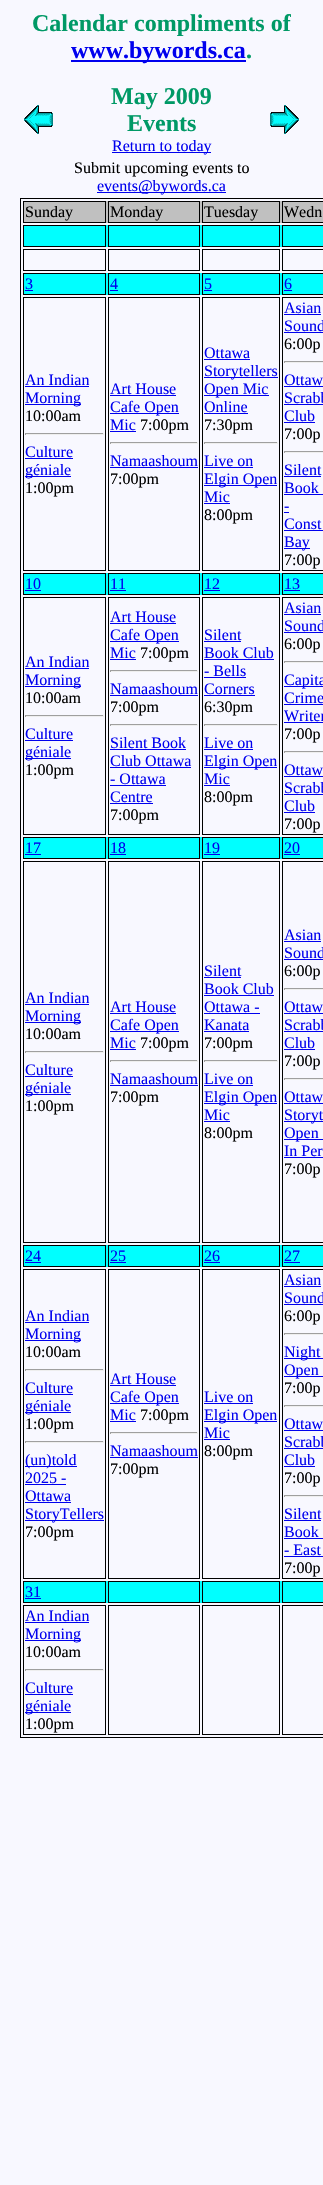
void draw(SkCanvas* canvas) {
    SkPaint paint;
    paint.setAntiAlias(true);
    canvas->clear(0xFFF8F8FF);
    SkFont font1(fontMgr->matchFamilyStyle("Liberation Serif", SkFontStyle::Bold()), 24);
    font1.setSubpixel(true);
    paint.setColor(0xFF009966);
    canvas->drawString("Calendar compliments of", 32, 31, font1, paint);
    paint.setColor(0xFF0000EE);
    canvas->drawRect(SkRect::MakeXYWH(71, 60, 175, 2), paint);
    canvas->drawString("www.bywords.ca", 71, 58, font1, paint);
    paint.setColor(0xFF009966);
    canvas->drawString(".", 246, 58, font1, paint);
    canvas->drawImageRect(SkImages::DeferredFromEncodedData(SkData::MakeFromFileName("img1.png")), SkRect::MakeXYWH(24, 105, 29, 29), SkSamplingOptions());
    canvas->drawString("May 2009", 111, 104, font1, paint);
    canvas->drawString("Events", 127, 131, font1, paint);
    paint.setColor(0xFF0000EE);
    canvas->drawRect(SkRect::MakeXYWH(112, 152, 99, 1), paint);
    SkFont font2(fontMgr->matchFamilyStyle("Liberation Serif", SkFontStyle::Normal()), 16);
    font2.setSubpixel(true);
    canvas->drawString("Return to today", 112, 151, font2, paint);
    canvas->drawImageRect(SkImages::DeferredFromEncodedData(SkData::MakeFromFileName("img2.png")), SkRect::MakeXYWH(270, 105, 29, 29), SkSamplingOptions());
    paint.setColor(0xFF000000);
    canvas->drawString("Submit upcoming events to", 74, 173, font2, paint);
    paint.setColor(0xFF0000EE);
    canvas->drawRect(SkRect::MakeXYWH(97, 192, 129, 1), paint);
    canvas->drawString("events@bywords.ca", 97, 191, font2, paint);
    paint.setStyle(SkPaint::kStroke_Style);
    paint.setStrokeWidth(1);
    paint.setColor(0xFF000000);
    canvas->drawRect(SkRect::MakeXYWH(20.5f, 198.5f, 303, 1539), paint);
    paint.setStyle(SkPaint::kFill_Style);
    paint.setColor(0xFFC0C0C0);
    canvas->drawRect(SkRect::MakeXYWH(24, 201, 299, 22), paint);
    paint.setStyle(SkPaint::kStroke_Style);
    paint.setColor(0xFF000000);
    canvas->drawRect(SkRect::MakeXYWH(23.5f, 201.5f, 82, 21), paint);
    paint.setStyle(SkPaint::kFill_Style);
    canvas->drawString("Sunday", 25, 217, font2, paint);
    paint.setStyle(SkPaint::kStroke_Style);
    canvas->drawRect(SkRect::MakeXYWH(108.5f, 201.5f, 91, 21), paint);
    paint.setStyle(SkPaint::kFill_Style);
    canvas->drawString("Monday", 110, 217, font2, paint);
    paint.setStyle(SkPaint::kStroke_Style);
    canvas->drawRect(SkRect::MakeXYWH(202.5f, 201.5f, 77, 21), paint);
    paint.setStyle(SkPaint::kFill_Style);
    canvas->drawString("Tuesday", 204, 217, font2, paint);
    paint.setStyle(SkPaint::kStroke_Style);
    canvas->drawRect(SkRect::MakeXYWH(282.5f, 201.5f, 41, 21), paint);
    paint.setStyle(SkPaint::kFill_Style);
    canvas->drawString("Wedn", 284, 217, font2, paint);
    paint.setColor(0xFF00FFFF);
    canvas->drawRect(SkRect::MakeXYWH(24, 225, 299, 22), paint);
    paint.setStyle(SkPaint::kStroke_Style);
    paint.setColor(0xFF000000);
    canvas->drawRect(SkRect::MakeXYWH(23.5f, 225.5f, 82, 21), paint);
    canvas->drawRect(SkRect::MakeXYWH(108.5f, 225.5f, 91, 21), paint);
    canvas->drawRect(SkRect::MakeXYWH(202.5f, 225.5f, 77, 21), paint);
    canvas->drawRect(SkRect::MakeXYWH(282.5f, 225.5f, 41, 21), paint);
    canvas->drawRect(SkRect::MakeXYWH(23.5f, 249.5f, 82, 21), paint);
    canvas->drawRect(SkRect::MakeXYWH(108.5f, 249.5f, 91, 21), paint);
    canvas->drawRect(SkRect::MakeXYWH(202.5f, 249.5f, 77, 21), paint);
    canvas->drawRect(SkRect::MakeXYWH(282.5f, 249.5f, 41, 21), paint);
    paint.setStyle(SkPaint::kFill_Style);
    paint.setColor(0xFF00FFFF);
    canvas->drawRect(SkRect::MakeXYWH(24, 273, 299, 22), paint);
    paint.setStyle(SkPaint::kStroke_Style);
    paint.setColor(0xFF000000);
    canvas->drawRect(SkRect::MakeXYWH(23.5f, 273.5f, 82, 21), paint);
    paint.setStyle(SkPaint::kFill_Style);
    paint.setColor(0xFF0000EE);
    canvas->drawString("3", 25, 289, font2, paint);
    canvas->drawRect(SkRect::MakeXYWH(25, 290, 8, 1), paint);
    paint.setStyle(SkPaint::kStroke_Style);
    paint.setColor(0xFF000000);
    canvas->drawRect(SkRect::MakeXYWH(108.5f, 273.5f, 91, 21), paint);
    paint.setStyle(SkPaint::kFill_Style);
    paint.setColor(0xFF0000EE);
    canvas->drawString("4", 110, 289, font2, paint);
    canvas->drawRect(SkRect::MakeXYWH(110, 290, 8, 1), paint);
    paint.setStyle(SkPaint::kStroke_Style);
    paint.setColor(0xFF000000);
    canvas->drawRect(SkRect::MakeXYWH(202.5f, 273.5f, 77, 21), paint);
    paint.setStyle(SkPaint::kFill_Style);
    paint.setColor(0xFF0000EE);
    canvas->drawString("5", 204, 289, font2, paint);
    canvas->drawRect(SkRect::MakeXYWH(204, 290, 8, 1), paint);
    paint.setStyle(SkPaint::kStroke_Style);
    paint.setColor(0xFF000000);
    canvas->drawRect(SkRect::MakeXYWH(282.5f, 273.5f, 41, 21), paint);
    paint.setStyle(SkPaint::kFill_Style);
    paint.setColor(0xFF0000EE);
    canvas->drawString("6", 284, 289, font2, paint);
    canvas->drawRect(SkRect::MakeXYWH(284, 290, 8, 1), paint);
    paint.setStyle(SkPaint::kStroke_Style);
    paint.setColor(0xFF000000);
    canvas->drawRect(SkRect::MakeXYWH(23.5f, 297.5f, 82, 273), paint);
    paint.setStyle(SkPaint::kFill_Style);
    paint.setColor(0xFF0000EE);
    canvas->drawString("An Indian", 25, 385, font2, paint);
    canvas->drawRect(SkRect::MakeXYWH(25, 386, 64, 1), paint);
    canvas->drawRect(SkRect::MakeXYWH(25, 404, 56, 1), paint);
    canvas->drawString("Morning", 25, 403, font2, paint);
    paint.setColor(0xFF000000);
    canvas->drawString("10:00am", 25, 421, font2, paint);
    paint.setColor(0xFF9F9F9F);
    canvas->drawRect(SkRect::MakeXYWH(25, 433, 79, 1), paint);
    paint.setColor(0xFFEEEEEE);
    canvas->drawRect(SkRect::MakeXYWH(103, 433, 1, 2), paint);
    canvas->drawRect(SkRect::MakeXYWH(25, 434, 79, 1), paint);
    paint.setColor(0xFF9F9F9F);
    canvas->drawRect(SkRect::MakeXYWH(25, 433, 1, 2), paint);
    paint.setColor(0xFF0000EE);
    canvas->drawString("Culture", 25, 457, font2, paint);
    canvas->drawRect(SkRect::MakeXYWH(25, 458, 48, 1), paint);
    canvas->drawRect(SkRect::MakeXYWH(25, 476, 46, 1), paint);
    canvas->drawString("géniale", 25, 475, font2, paint);
    paint.setColor(0xFF000000);
    canvas->drawString("1:00pm", 25, 493, font2, paint);
    paint.setStyle(SkPaint::kStroke_Style);
    canvas->drawRect(SkRect::MakeXYWH(108.5f, 297.5f, 91, 273), paint);
    paint.setStyle(SkPaint::kFill_Style);
    paint.setColor(0xFF0000EE);
    canvas->drawString("Art House", 110, 394, font2, paint);
    canvas->drawRect(SkRect::MakeXYWH(110, 395, 66, 1), paint);
    canvas->drawRect(SkRect::MakeXYWH(110, 413, 69, 1), paint);
    canvas->drawString("Cafe Open", 110, 412, font2, paint);
    canvas->drawString("Mic", 110, 430, font2, paint);
    canvas->drawRect(SkRect::MakeXYWH(110, 431, 26, 1), paint);
    paint.setColor(0xFF000000);
    canvas->drawString("7:00pm", 140, 430, font2, paint);
    paint.setColor(0xFF9F9F9F);
    canvas->drawRect(SkRect::MakeXYWH(110, 442, 88, 1), paint);
    paint.setColor(0xFFEEEEEE);
    canvas->drawRect(SkRect::MakeXYWH(197, 442, 1, 2), paint);
    canvas->drawRect(SkRect::MakeXYWH(110, 443, 88, 1), paint);
    paint.setColor(0xFF9F9F9F);
    canvas->drawRect(SkRect::MakeXYWH(110, 442, 1, 2), paint);
    paint.setColor(0xFF0000EE);
    canvas->drawString("Namaashoum", 110, 466, font2, paint);
    canvas->drawRect(SkRect::MakeXYWH(110, 467, 88, 1), paint);
    paint.setColor(0xFF000000);
    canvas->drawString("7:00pm", 110, 484, font2, paint);
    paint.setStyle(SkPaint::kStroke_Style);
    canvas->drawRect(SkRect::MakeXYWH(202.5f, 297.5f, 77, 273), paint);
    paint.setStyle(SkPaint::kFill_Style);
    paint.setColor(0xFF0000EE);
    canvas->drawString("Ottawa", 204, 358, font2, paint);
    canvas->drawRect(SkRect::MakeXYWH(204, 359, 46, 1), paint);
    canvas->drawRect(SkRect::MakeXYWH(204, 377, 74, 1), paint);
    canvas->drawString("Storytellers", 204, 376, font2, paint);
    canvas->drawRect(SkRect::MakeXYWH(204, 395, 65, 1), paint);
    canvas->drawString("Open Mic", 204, 394, font2, paint);
    canvas->drawString("Online", 204, 412, font2, paint);
    canvas->drawRect(SkRect::MakeXYWH(204, 413, 44, 1), paint);
    paint.setColor(0xFF000000);
    canvas->drawString("7:30pm", 204, 430, font2, paint);
    paint.setColor(0xFF9F9F9F);
    canvas->drawRect(SkRect::MakeXYWH(204, 442, 74, 1), paint);
    paint.setColor(0xFFEEEEEE);
    canvas->drawRect(SkRect::MakeXYWH(277, 442, 1, 2), paint);
    canvas->drawRect(SkRect::MakeXYWH(204, 443, 74, 1), paint);
    paint.setColor(0xFF9F9F9F);
    canvas->drawRect(SkRect::MakeXYWH(204, 442, 1, 2), paint);
    paint.setColor(0xFF0000EE);
    canvas->drawString("Live on", 204, 466, font2, paint);
    canvas->drawRect(SkRect::MakeXYWH(204, 467, 49, 1), paint);
    canvas->drawRect(SkRect::MakeXYWH(204, 485, 73, 1), paint);
    canvas->drawString("Elgin Open", 204, 484, font2, paint);
    canvas->drawString("Mic", 204, 502, font2, paint);
    canvas->drawRect(SkRect::MakeXYWH(204, 503, 26, 1), paint);
    paint.setColor(0xFF000000);
    canvas->drawString("8:00pm", 204, 520, font2, paint);
    paint.setStyle(SkPaint::kStroke_Style);
    canvas->drawRect(SkRect::MakeXYWH(282.5f, 297.5f, 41, 273), paint);
    paint.setStyle(SkPaint::kFill_Style);
    paint.setColor(0xFF0000EE);
    canvas->drawString("Asian", 284, 313, font2, paint);
    canvas->drawRect(SkRect::MakeXYWH(284, 314, 37, 1), paint);
    canvas->drawString("Sound", 284, 331, font2, paint);
    canvas->drawRect(SkRect::MakeXYWH(284, 332, 39, 1), paint);
    paint.setColor(0xFF000000);
    canvas->drawString("6:00p", 284, 349, font2, paint);
    paint.setColor(0xFF9F9F9F);
    canvas->drawRect(SkRect::MakeXYWH(284, 361, 39, 1), paint);
    paint.setColor(0xFFEEEEEE);
    canvas->drawRect(SkRect::MakeXYWH(284, 362, 39, 1), paint);
    paint.setColor(0xFF9F9F9F);
    canvas->drawRect(SkRect::MakeXYWH(284, 361, 1, 2), paint);
    paint.setColor(0xFF0000EE);
    canvas->drawString("Ottaw", 284, 385, font2, paint);
    canvas->drawRect(SkRect::MakeXYWH(284, 386, 39, 1), paint);
    canvas->drawString("Scrabb", 284, 403, font2, paint);
    canvas->drawRect(SkRect::MakeXYWH(284, 404, 39, 1), paint);
    canvas->drawString("Club", 284, 421, font2, paint);
    canvas->drawRect(SkRect::MakeXYWH(284, 422, 31, 1), paint);
    paint.setColor(0xFF000000);
    canvas->drawString("7:00p", 284, 439, font2, paint);
    paint.setColor(0xFF9F9F9F);
    canvas->drawRect(SkRect::MakeXYWH(284, 451, 39, 1), paint);
    paint.setColor(0xFFEEEEEE);
    canvas->drawRect(SkRect::MakeXYWH(284, 452, 39, 1), paint);
    paint.setColor(0xFF9F9F9F);
    canvas->drawRect(SkRect::MakeXYWH(284, 451, 1, 2), paint);
    paint.setColor(0xFF0000EE);
    canvas->drawString("Silent", 284, 475, font2, paint);
    canvas->drawRect(SkRect::MakeXYWH(284, 476, 37, 1), paint);
    canvas->drawString("Book", 284, 493, font2, paint);
    canvas->drawRect(SkRect::MakeXYWH(284, 494, 39, 1), paint);
    canvas->drawString("-", 284, 511, font2, paint);
    canvas->drawRect(SkRect::MakeXYWH(284, 512, 5, 1), paint);
    canvas->drawString("Const", 284, 529, font2, paint);
    canvas->drawRect(SkRect::MakeXYWH(284, 530, 39, 1), paint);
    canvas->drawRect(SkRect::MakeXYWH(284, 548, 26, 1), paint);
    canvas->drawString("Bay", 284, 547, font2, paint);
    paint.setColor(0xFF000000);
    canvas->drawString("7:00p", 284, 565, font2, paint);
    paint.setColor(0xFF00FFFF);
    canvas->drawRect(SkRect::MakeXYWH(24, 573, 299, 22), paint);
    paint.setStyle(SkPaint::kStroke_Style);
    paint.setColor(0xFF000000);
    canvas->drawRect(SkRect::MakeXYWH(23.5f, 573.5f, 82, 21), paint);
    paint.setStyle(SkPaint::kFill_Style);
    paint.setColor(0xFF0000EE);
    canvas->drawString("10", 25, 589, font2, paint);
    canvas->drawRect(SkRect::MakeXYWH(25, 590, 16, 1), paint);
    paint.setStyle(SkPaint::kStroke_Style);
    paint.setColor(0xFF000000);
    canvas->drawRect(SkRect::MakeXYWH(108.5f, 573.5f, 91, 21), paint);
    paint.setStyle(SkPaint::kFill_Style);
    paint.setColor(0xFF0000EE);
    canvas->drawString("11", 110, 589, font2, paint);
    canvas->drawRect(SkRect::MakeXYWH(110, 590, 16, 1), paint);
    paint.setStyle(SkPaint::kStroke_Style);
    paint.setColor(0xFF000000);
    canvas->drawRect(SkRect::MakeXYWH(202.5f, 573.5f, 77, 21), paint);
    paint.setStyle(SkPaint::kFill_Style);
    paint.setColor(0xFF0000EE);
    canvas->drawString("12", 204, 589, font2, paint);
    canvas->drawRect(SkRect::MakeXYWH(204, 590, 16, 1), paint);
    paint.setStyle(SkPaint::kStroke_Style);
    paint.setColor(0xFF000000);
    canvas->drawRect(SkRect::MakeXYWH(282.5f, 573.5f, 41, 21), paint);
    paint.setStyle(SkPaint::kFill_Style);
    paint.setColor(0xFF0000EE);
    canvas->drawString("13", 284, 589, font2, paint);
    canvas->drawRect(SkRect::MakeXYWH(284, 590, 16, 1), paint);
    paint.setStyle(SkPaint::kStroke_Style);
    paint.setColor(0xFF000000);
    canvas->drawRect(SkRect::MakeXYWH(23.5f, 597.5f, 82, 237), paint);
    paint.setStyle(SkPaint::kFill_Style);
    paint.setColor(0xFF0000EE);
    canvas->drawString("An Indian", 25, 667, font2, paint);
    canvas->drawRect(SkRect::MakeXYWH(25, 668, 64, 1), paint);
    canvas->drawRect(SkRect::MakeXYWH(25, 686, 56, 1), paint);
    canvas->drawString("Morning", 25, 685, font2, paint);
    paint.setColor(0xFF000000);
    canvas->drawString("10:00am", 25, 703, font2, paint);
    paint.setColor(0xFF9F9F9F);
    canvas->drawRect(SkRect::MakeXYWH(25, 715, 79, 1), paint);
    paint.setColor(0xFFEEEEEE);
    canvas->drawRect(SkRect::MakeXYWH(103, 715, 1, 2), paint);
    canvas->drawRect(SkRect::MakeXYWH(25, 716, 79, 1), paint);
    paint.setColor(0xFF9F9F9F);
    canvas->drawRect(SkRect::MakeXYWH(25, 715, 1, 2), paint);
    paint.setColor(0xFF0000EE);
    canvas->drawString("Culture", 25, 739, font2, paint);
    canvas->drawRect(SkRect::MakeXYWH(25, 740, 48, 1), paint);
    canvas->drawRect(SkRect::MakeXYWH(25, 758, 46, 1), paint);
    canvas->drawString("géniale", 25, 757, font2, paint);
    paint.setColor(0xFF000000);
    canvas->drawString("1:00pm", 25, 775, font2, paint);
    paint.setStyle(SkPaint::kStroke_Style);
    canvas->drawRect(SkRect::MakeXYWH(108.5f, 597.5f, 91, 237), paint);
    paint.setStyle(SkPaint::kFill_Style);
    paint.setColor(0xFF0000EE);
    canvas->drawString("Art House", 110, 622, font2, paint);
    canvas->drawRect(SkRect::MakeXYWH(110, 623, 66, 1), paint);
    canvas->drawRect(SkRect::MakeXYWH(110, 641, 69, 1), paint);
    canvas->drawString("Cafe Open", 110, 640, font2, paint);
    canvas->drawString("Mic", 110, 658, font2, paint);
    canvas->drawRect(SkRect::MakeXYWH(110, 659, 26, 1), paint);
    paint.setColor(0xFF000000);
    canvas->drawString("7:00pm", 140, 658, font2, paint);
    paint.setColor(0xFF9F9F9F);
    canvas->drawRect(SkRect::MakeXYWH(110, 670, 88, 1), paint);
    paint.setColor(0xFFEEEEEE);
    canvas->drawRect(SkRect::MakeXYWH(197, 670, 1, 2), paint);
    canvas->drawRect(SkRect::MakeXYWH(110, 671, 88, 1), paint);
    paint.setColor(0xFF9F9F9F);
    canvas->drawRect(SkRect::MakeXYWH(110, 670, 1, 2), paint);
    paint.setColor(0xFF0000EE);
    canvas->drawString("Namaashoum", 110, 694, font2, paint);
    canvas->drawRect(SkRect::MakeXYWH(110, 695, 88, 1), paint);
    paint.setColor(0xFF000000);
    canvas->drawString("7:00pm", 110, 712, font2, paint);
    paint.setColor(0xFF9F9F9F);
    canvas->drawRect(SkRect::MakeXYWH(110, 724, 88, 1), paint);
    paint.setColor(0xFFEEEEEE);
    canvas->drawRect(SkRect::MakeXYWH(197, 724, 1, 2), paint);
    canvas->drawRect(SkRect::MakeXYWH(110, 725, 88, 1), paint);
    paint.setColor(0xFF9F9F9F);
    canvas->drawRect(SkRect::MakeXYWH(110, 724, 1, 2), paint);
    paint.setColor(0xFF0000EE);
    canvas->drawString("Silent Book", 110, 748, font2, paint);
    canvas->drawRect(SkRect::MakeXYWH(110, 749, 76, 1), paint);
    canvas->drawString("Club Ottawa", 110, 766, font2, paint);
    canvas->drawRect(SkRect::MakeXYWH(110, 767, 81, 1), paint);
    canvas->drawString("- Ottawa", 110, 784, font2, paint);
    canvas->drawRect(SkRect::MakeXYWH(110, 785, 56, 1), paint);
    canvas->drawString("Centre", 110, 802, font2, paint);
    canvas->drawRect(SkRect::MakeXYWH(110, 803, 43, 1), paint);
    paint.setColor(0xFF000000);
    canvas->drawString("7:00pm", 110, 820, font2, paint);
    paint.setStyle(SkPaint::kStroke_Style);
    canvas->drawRect(SkRect::MakeXYWH(202.5f, 597.5f, 77, 237), paint);
    paint.setStyle(SkPaint::kFill_Style);
    paint.setColor(0xFF0000EE);
    canvas->drawString("Silent", 204, 640, font2, paint);
    canvas->drawRect(SkRect::MakeXYWH(204, 641, 37, 1), paint);
    canvas->drawString("Book Club", 204, 658, font2, paint);
    canvas->drawRect(SkRect::MakeXYWH(204, 659, 70, 1), paint);
    canvas->drawString("- Bells", 204, 676, font2, paint);
    canvas->drawRect(SkRect::MakeXYWH(204, 677, 42, 1), paint);
    canvas->drawString("Corners", 204, 694, font2, paint);
    canvas->drawRect(SkRect::MakeXYWH(204, 695, 51, 1), paint);
    paint.setColor(0xFF000000);
    canvas->drawString("6:30pm", 204, 712, font2, paint);
    paint.setColor(0xFF9F9F9F);
    canvas->drawRect(SkRect::MakeXYWH(204, 724, 74, 1), paint);
    paint.setColor(0xFFEEEEEE);
    canvas->drawRect(SkRect::MakeXYWH(277, 724, 1, 2), paint);
    canvas->drawRect(SkRect::MakeXYWH(204, 725, 74, 1), paint);
    paint.setColor(0xFF9F9F9F);
    canvas->drawRect(SkRect::MakeXYWH(204, 724, 1, 2), paint);
    paint.setColor(0xFF0000EE);
    canvas->drawString("Live on", 204, 748, font2, paint);
    canvas->drawRect(SkRect::MakeXYWH(204, 749, 49, 1), paint);
    canvas->drawRect(SkRect::MakeXYWH(204, 767, 73, 1), paint);
    canvas->drawString("Elgin Open", 204, 766, font2, paint);
    canvas->drawString("Mic", 204, 784, font2, paint);
    canvas->drawRect(SkRect::MakeXYWH(204, 785, 26, 1), paint);
    paint.setColor(0xFF000000);
    canvas->drawString("8:00pm", 204, 802, font2, paint);
    paint.setStyle(SkPaint::kStroke_Style);
    canvas->drawRect(SkRect::MakeXYWH(282.5f, 597.5f, 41, 237), paint);
    paint.setStyle(SkPaint::kFill_Style);
    paint.setColor(0xFF0000EE);
    canvas->drawString("Asian", 284, 613, font2, paint);
    canvas->drawRect(SkRect::MakeXYWH(284, 614, 37, 1), paint);
    canvas->drawString("Sound", 284, 631, font2, paint);
    canvas->drawRect(SkRect::MakeXYWH(284, 632, 39, 1), paint);
    paint.setColor(0xFF000000);
    canvas->drawString("6:00p", 284, 649, font2, paint);
    paint.setColor(0xFF9F9F9F);
    canvas->drawRect(SkRect::MakeXYWH(284, 661, 39, 1), paint);
    paint.setColor(0xFFEEEEEE);
    canvas->drawRect(SkRect::MakeXYWH(284, 662, 39, 1), paint);
    paint.setColor(0xFF9F9F9F);
    canvas->drawRect(SkRect::MakeXYWH(284, 661, 1, 2), paint);
    paint.setColor(0xFF0000EE);
    canvas->drawRect(SkRect::MakeXYWH(284, 686, 39, 1), paint);
    canvas->drawString("Capita", 284, 685, font2, paint);
    canvas->drawString("Crime", 284, 703, font2, paint);
    canvas->drawRect(SkRect::MakeXYWH(284, 704, 39, 1), paint);
    canvas->drawString("Writer", 284, 721, font2, paint);
    canvas->drawRect(SkRect::MakeXYWH(284, 722, 39, 1), paint);
    paint.setColor(0xFF000000);
    canvas->drawString("7:00p", 284, 739, font2, paint);
    paint.setColor(0xFF9F9F9F);
    canvas->drawRect(SkRect::MakeXYWH(284, 751, 39, 1), paint);
    paint.setColor(0xFFEEEEEE);
    canvas->drawRect(SkRect::MakeXYWH(284, 752, 39, 1), paint);
    paint.setColor(0xFF9F9F9F);
    canvas->drawRect(SkRect::MakeXYWH(284, 751, 1, 2), paint);
    paint.setColor(0xFF0000EE);
    canvas->drawString("Ottaw", 284, 775, font2, paint);
    canvas->drawRect(SkRect::MakeXYWH(284, 776, 39, 1), paint);
    canvas->drawString("Scrabb", 284, 793, font2, paint);
    canvas->drawRect(SkRect::MakeXYWH(284, 794, 39, 1), paint);
    canvas->drawString("Club", 284, 811, font2, paint);
    canvas->drawRect(SkRect::MakeXYWH(284, 812, 31, 1), paint);
    paint.setColor(0xFF000000);
    canvas->drawString("7:00p", 284, 829, font2, paint);
    paint.setColor(0xFF00FFFF);
    canvas->drawRect(SkRect::MakeXYWH(24, 837, 299, 22), paint);
    paint.setStyle(SkPaint::kStroke_Style);
    paint.setColor(0xFF000000);
    canvas->drawRect(SkRect::MakeXYWH(23.5f, 837.5f, 82, 21), paint);
    paint.setStyle(SkPaint::kFill_Style);
    paint.setColor(0xFF0000EE);
    canvas->drawString("17", 25, 853, font2, paint);
    canvas->drawRect(SkRect::MakeXYWH(25, 854, 16, 1), paint);
    paint.setStyle(SkPaint::kStroke_Style);
    paint.setColor(0xFF000000);
    canvas->drawRect(SkRect::MakeXYWH(108.5f, 837.5f, 91, 21), paint);
    paint.setStyle(SkPaint::kFill_Style);
    paint.setColor(0xFF0000EE);
    canvas->drawString("18", 110, 853, font2, paint);
    canvas->drawRect(SkRect::MakeXYWH(110, 854, 16, 1), paint);
    paint.setStyle(SkPaint::kStroke_Style);
    paint.setColor(0xFF000000);
    canvas->drawRect(SkRect::MakeXYWH(202.5f, 837.5f, 77, 21), paint);
    paint.setStyle(SkPaint::kFill_Style);
    paint.setColor(0xFF0000EE);
    canvas->drawString("19", 204, 853, font2, paint);
    canvas->drawRect(SkRect::MakeXYWH(204, 854, 16, 1), paint);
    paint.setStyle(SkPaint::kStroke_Style);
    paint.setColor(0xFF000000);
    canvas->drawRect(SkRect::MakeXYWH(282.5f, 837.5f, 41, 21), paint);
    paint.setStyle(SkPaint::kFill_Style);
    paint.setColor(0xFF0000EE);
    canvas->drawString("20", 284, 853, font2, paint);
    canvas->drawRect(SkRect::MakeXYWH(284, 854, 16, 1), paint);
    paint.setStyle(SkPaint::kStroke_Style);
    paint.setColor(0xFF000000);
    canvas->drawRect(SkRect::MakeXYWH(23.5f, 861.5f, 82, 381), paint);
    paint.setStyle(SkPaint::kFill_Style);
    paint.setColor(0xFF0000EE);
    canvas->drawString("An Indian", 25, 1003, font2, paint);
    canvas->drawRect(SkRect::MakeXYWH(25, 1004, 64, 1), paint);
    canvas->drawRect(SkRect::MakeXYWH(25, 1022, 56, 1), paint);
    canvas->drawString("Morning", 25, 1021, font2, paint);
    paint.setColor(0xFF000000);
    canvas->drawString("10:00am", 25, 1039, font2, paint);
    paint.setColor(0xFF9F9F9F);
    canvas->drawRect(SkRect::MakeXYWH(25, 1051, 79, 1), paint);
    paint.setColor(0xFFEEEEEE);
    canvas->drawRect(SkRect::MakeXYWH(103, 1051, 1, 2), paint);
    canvas->drawRect(SkRect::MakeXYWH(25, 1052, 79, 1), paint);
    paint.setColor(0xFF9F9F9F);
    canvas->drawRect(SkRect::MakeXYWH(25, 1051, 1, 2), paint);
    paint.setColor(0xFF0000EE);
    canvas->drawString("Culture", 25, 1075, font2, paint);
    canvas->drawRect(SkRect::MakeXYWH(25, 1076, 48, 1), paint);
    canvas->drawRect(SkRect::MakeXYWH(25, 1094, 46, 1), paint);
    canvas->drawString("géniale", 25, 1093, font2, paint);
    paint.setColor(0xFF000000);
    canvas->drawString("1:00pm", 25, 1111, font2, paint);
    paint.setStyle(SkPaint::kStroke_Style);
    canvas->drawRect(SkRect::MakeXYWH(108.5f, 861.5f, 91, 381), paint);
    paint.setStyle(SkPaint::kFill_Style);
    paint.setColor(0xFF0000EE);
    canvas->drawString("Art House", 110, 1012, font2, paint);
    canvas->drawRect(SkRect::MakeXYWH(110, 1013, 66, 1), paint);
    canvas->drawRect(SkRect::MakeXYWH(110, 1031, 69, 1), paint);
    canvas->drawString("Cafe Open", 110, 1030, font2, paint);
    canvas->drawString("Mic", 110, 1048, font2, paint);
    canvas->drawRect(SkRect::MakeXYWH(110, 1049, 26, 1), paint);
    paint.setColor(0xFF000000);
    canvas->drawString("7:00pm", 140, 1048, font2, paint);
    paint.setColor(0xFF9F9F9F);
    canvas->drawRect(SkRect::MakeXYWH(110, 1060, 88, 1), paint);
    paint.setColor(0xFFEEEEEE);
    canvas->drawRect(SkRect::MakeXYWH(197, 1060, 1, 2), paint);
    canvas->drawRect(SkRect::MakeXYWH(110, 1061, 88, 1), paint);
    paint.setColor(0xFF9F9F9F);
    canvas->drawRect(SkRect::MakeXYWH(110, 1060, 1, 2), paint);
    paint.setColor(0xFF0000EE);
    canvas->drawString("Namaashoum", 110, 1084, font2, paint);
    canvas->drawRect(SkRect::MakeXYWH(110, 1085, 88, 1), paint);
    paint.setColor(0xFF000000);
    canvas->drawString("7:00pm", 110, 1102, font2, paint);
    paint.setStyle(SkPaint::kStroke_Style);
    canvas->drawRect(SkRect::MakeXYWH(202.5f, 861.5f, 77, 381), paint);
    paint.setStyle(SkPaint::kFill_Style);
    paint.setColor(0xFF0000EE);
    canvas->drawString("Silent", 204, 976, font2, paint);
    canvas->drawRect(SkRect::MakeXYWH(204, 977, 37, 1), paint);
    canvas->drawString("Book Club", 204, 994, font2, paint);
    canvas->drawRect(SkRect::MakeXYWH(204, 995, 70, 1), paint);
    canvas->drawString("Ottawa -", 204, 1012, font2, paint);
    canvas->drawRect(SkRect::MakeXYWH(204, 1013, 56, 1), paint);
    canvas->drawString("Kanata", 204, 1030, font2, paint);
    canvas->drawRect(SkRect::MakeXYWH(204, 1031, 45, 1), paint);
    paint.setColor(0xFF000000);
    canvas->drawString("7:00pm", 204, 1048, font2, paint);
    paint.setColor(0xFF9F9F9F);
    canvas->drawRect(SkRect::MakeXYWH(204, 1060, 74, 1), paint);
    paint.setColor(0xFFEEEEEE);
    canvas->drawRect(SkRect::MakeXYWH(277, 1060, 1, 2), paint);
    canvas->drawRect(SkRect::MakeXYWH(204, 1061, 74, 1), paint);
    paint.setColor(0xFF9F9F9F);
    canvas->drawRect(SkRect::MakeXYWH(204, 1060, 1, 2), paint);
    paint.setColor(0xFF0000EE);
    canvas->drawString("Live on", 204, 1084, font2, paint);
    canvas->drawRect(SkRect::MakeXYWH(204, 1085, 49, 1), paint);
    canvas->drawRect(SkRect::MakeXYWH(204, 1103, 73, 1), paint);
    canvas->drawString("Elgin Open", 204, 1102, font2, paint);
    canvas->drawString("Mic", 204, 1120, font2, paint);
    canvas->drawRect(SkRect::MakeXYWH(204, 1121, 26, 1), paint);
    paint.setColor(0xFF000000);
    canvas->drawString("8:00pm", 204, 1138, font2, paint);
    paint.setStyle(SkPaint::kStroke_Style);
    canvas->drawRect(SkRect::MakeXYWH(282.5f, 861.5f, 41, 381), paint);
    paint.setStyle(SkPaint::kFill_Style);
    paint.setColor(0xFF0000EE);
    canvas->drawString("Asian", 284, 940, font2, paint);
    canvas->drawRect(SkRect::MakeXYWH(284, 941, 37, 1), paint);
    canvas->drawString("Sound", 284, 958, font2, paint);
    canvas->drawRect(SkRect::MakeXYWH(284, 959, 39, 1), paint);
    paint.setColor(0xFF000000);
    canvas->drawString("6:00p", 284, 976, font2, paint);
    paint.setColor(0xFF9F9F9F);
    canvas->drawRect(SkRect::MakeXYWH(284, 988, 39, 1), paint);
    paint.setColor(0xFFEEEEEE);
    canvas->drawRect(SkRect::MakeXYWH(284, 989, 39, 1), paint);
    paint.setColor(0xFF9F9F9F);
    canvas->drawRect(SkRect::MakeXYWH(284, 988, 1, 2), paint);
    paint.setColor(0xFF0000EE);
    canvas->drawString("Ottaw", 284, 1012, font2, paint);
    canvas->drawRect(SkRect::MakeXYWH(284, 1013, 39, 1), paint);
    canvas->drawString("Scrabb", 284, 1030, font2, paint);
    canvas->drawRect(SkRect::MakeXYWH(284, 1031, 39, 1), paint);
    canvas->drawString("Club", 284, 1048, font2, paint);
    canvas->drawRect(SkRect::MakeXYWH(284, 1049, 31, 1), paint);
    paint.setColor(0xFF000000);
    canvas->drawString("7:00p", 284, 1066, font2, paint);
    paint.setColor(0xFF9F9F9F);
    canvas->drawRect(SkRect::MakeXYWH(284, 1078, 39, 1), paint);
    paint.setColor(0xFFEEEEEE);
    canvas->drawRect(SkRect::MakeXYWH(284, 1079, 39, 1), paint);
    paint.setColor(0xFF9F9F9F);
    canvas->drawRect(SkRect::MakeXYWH(284, 1078, 1, 2), paint);
    paint.setColor(0xFF0000EE);
    canvas->drawString("Ottaw", 284, 1102, font2, paint);
    canvas->drawRect(SkRect::MakeXYWH(284, 1103, 39, 1), paint);
    canvas->drawRect(SkRect::MakeXYWH(284, 1121, 39, 1), paint);
    canvas->drawString("Storyt", 284, 1120, font2, paint);
    canvas->drawRect(SkRect::MakeXYWH(284, 1139, 39, 1), paint);
    canvas->drawString("Open", 284, 1138, font2, paint);
    canvas->drawString("In Per", 284, 1156, font2, paint);
    canvas->drawRect(SkRect::MakeXYWH(284, 1157, 39, 1), paint);
    paint.setColor(0xFF000000);
    canvas->drawString("7:00p", 284, 1174, font2, paint);
    paint.setColor(0xFF00FFFF);
    canvas->drawRect(SkRect::MakeXYWH(24, 1245, 299, 22), paint);
    paint.setStyle(SkPaint::kStroke_Style);
    paint.setColor(0xFF000000);
    canvas->drawRect(SkRect::MakeXYWH(23.5f, 1245.5f, 82, 21), paint);
    paint.setStyle(SkPaint::kFill_Style);
    paint.setColor(0xFF0000EE);
    canvas->drawString("24", 25, 1261, font2, paint);
    canvas->drawRect(SkRect::MakeXYWH(25, 1262, 16, 1), paint);
    paint.setStyle(SkPaint::kStroke_Style);
    paint.setColor(0xFF000000);
    canvas->drawRect(SkRect::MakeXYWH(108.5f, 1245.5f, 91, 21), paint);
    paint.setStyle(SkPaint::kFill_Style);
    paint.setColor(0xFF0000EE);
    canvas->drawString("25", 110, 1261, font2, paint);
    canvas->drawRect(SkRect::MakeXYWH(110, 1262, 16, 1), paint);
    paint.setStyle(SkPaint::kStroke_Style);
    paint.setColor(0xFF000000);
    canvas->drawRect(SkRect::MakeXYWH(202.5f, 1245.5f, 77, 21), paint);
    paint.setStyle(SkPaint::kFill_Style);
    paint.setColor(0xFF0000EE);
    canvas->drawString("26", 204, 1261, font2, paint);
    canvas->drawRect(SkRect::MakeXYWH(204, 1262, 16, 1), paint);
    paint.setStyle(SkPaint::kStroke_Style);
    paint.setColor(0xFF000000);
    canvas->drawRect(SkRect::MakeXYWH(282.5f, 1245.5f, 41, 21), paint);
    paint.setStyle(SkPaint::kFill_Style);
    paint.setColor(0xFF0000EE);
    canvas->drawString("27", 284, 1261, font2, paint);
    canvas->drawRect(SkRect::MakeXYWH(284, 1262, 16, 1), paint);
    paint.setStyle(SkPaint::kStroke_Style);
    paint.setColor(0xFF000000);
    canvas->drawRect(SkRect::MakeXYWH(23.5f, 1269.5f, 82, 309), paint);
    paint.setStyle(SkPaint::kFill_Style);
    paint.setColor(0xFF0000EE);
    canvas->drawString("An Indian", 25, 1321, font2, paint);
    canvas->drawRect(SkRect::MakeXYWH(25, 1322, 64, 1), paint);
    canvas->drawRect(SkRect::MakeXYWH(25, 1340, 56, 1), paint);
    canvas->drawString("Morning", 25, 1339, font2, paint);
    paint.setColor(0xFF000000);
    canvas->drawString("10:00am", 25, 1357, font2, paint);
    paint.setColor(0xFF9F9F9F);
    canvas->drawRect(SkRect::MakeXYWH(25, 1369, 79, 1), paint);
    paint.setColor(0xFFEEEEEE);
    canvas->drawRect(SkRect::MakeXYWH(103, 1369, 1, 2), paint);
    canvas->drawRect(SkRect::MakeXYWH(25, 1370, 79, 1), paint);
    paint.setColor(0xFF9F9F9F);
    canvas->drawRect(SkRect::MakeXYWH(25, 1369, 1, 2), paint);
    paint.setColor(0xFF0000EE);
    canvas->drawString("Culture", 25, 1393, font2, paint);
    canvas->drawRect(SkRect::MakeXYWH(25, 1394, 48, 1), paint);
    canvas->drawRect(SkRect::MakeXYWH(25, 1412, 46, 1), paint);
    canvas->drawString("géniale", 25, 1411, font2, paint);
    paint.setColor(0xFF000000);
    canvas->drawString("1:00pm", 25, 1429, font2, paint);
    paint.setColor(0xFF9F9F9F);
    canvas->drawRect(SkRect::MakeXYWH(25, 1441, 79, 1), paint);
    paint.setColor(0xFFEEEEEE);
    canvas->drawRect(SkRect::MakeXYWH(103, 1441, 1, 2), paint);
    canvas->drawRect(SkRect::MakeXYWH(25, 1442, 79, 1), paint);
    paint.setColor(0xFF9F9F9F);
    canvas->drawRect(SkRect::MakeXYWH(25, 1441, 1, 2), paint);
    paint.setColor(0xFF0000EE);
    canvas->drawRect(SkRect::MakeXYWH(25, 1466, 52, 1), paint);
    canvas->drawString("(un)told", 25, 1465, font2, paint);
    canvas->drawString("2025 -", 25, 1483, font2, paint);
    canvas->drawRect(SkRect::MakeXYWH(25, 1484, 41, 1), paint);
    canvas->drawString("Ottawa", 25, 1501, font2, paint);
    canvas->drawRect(SkRect::MakeXYWH(25, 1502, 46, 1), paint);
    canvas->drawRect(SkRect::MakeXYWH(25, 1520, 79, 1), paint);
    canvas->drawString("StoryTellers", 25, 1519, font2, paint);
    paint.setColor(0xFF000000);
    canvas->drawString("7:00pm", 25, 1537, font2, paint);
    paint.setStyle(SkPaint::kStroke_Style);
    canvas->drawRect(SkRect::MakeXYWH(108.5f, 1269.5f, 91, 309), paint);
    paint.setStyle(SkPaint::kFill_Style);
    paint.setColor(0xFF0000EE);
    canvas->drawString("Art House", 110, 1384, font2, paint);
    canvas->drawRect(SkRect::MakeXYWH(110, 1385, 66, 1), paint);
    canvas->drawRect(SkRect::MakeXYWH(110, 1403, 69, 1), paint);
    canvas->drawString("Cafe Open", 110, 1402, font2, paint);
    canvas->drawString("Mic", 110, 1420, font2, paint);
    canvas->drawRect(SkRect::MakeXYWH(110, 1421, 26, 1), paint);
    paint.setColor(0xFF000000);
    canvas->drawString("7:00pm", 140, 1420, font2, paint);
    paint.setColor(0xFF9F9F9F);
    canvas->drawRect(SkRect::MakeXYWH(110, 1432, 88, 1), paint);
    paint.setColor(0xFFEEEEEE);
    canvas->drawRect(SkRect::MakeXYWH(197, 1432, 1, 2), paint);
    canvas->drawRect(SkRect::MakeXYWH(110, 1433, 88, 1), paint);
    paint.setColor(0xFF9F9F9F);
    canvas->drawRect(SkRect::MakeXYWH(110, 1432, 1, 2), paint);
    paint.setColor(0xFF0000EE);
    canvas->drawString("Namaashoum", 110, 1456, font2, paint);
    canvas->drawRect(SkRect::MakeXYWH(110, 1457, 88, 1), paint);
    paint.setColor(0xFF000000);
    canvas->drawString("7:00pm", 110, 1474, font2, paint);
    paint.setStyle(SkPaint::kStroke_Style);
    canvas->drawRect(SkRect::MakeXYWH(202.5f, 1269.5f, 77, 309), paint);
    paint.setStyle(SkPaint::kFill_Style);
    paint.setColor(0xFF0000EE);
    canvas->drawString("Live on", 204, 1402, font2, paint);
    canvas->drawRect(SkRect::MakeXYWH(204, 1403, 49, 1), paint);
    canvas->drawRect(SkRect::MakeXYWH(204, 1421, 73, 1), paint);
    canvas->drawString("Elgin Open", 204, 1420, font2, paint);
    canvas->drawString("Mic", 204, 1438, font2, paint);
    canvas->drawRect(SkRect::MakeXYWH(204, 1439, 26, 1), paint);
    paint.setColor(0xFF000000);
    canvas->drawString("8:00pm", 204, 1456, font2, paint);
    paint.setStyle(SkPaint::kStroke_Style);
    canvas->drawRect(SkRect::MakeXYWH(282.5f, 1269.5f, 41, 309), paint);
    paint.setStyle(SkPaint::kFill_Style);
    paint.setColor(0xFF0000EE);
    canvas->drawString("Asian", 284, 1285, font2, paint);
    canvas->drawRect(SkRect::MakeXYWH(284, 1286, 37, 1), paint);
    canvas->drawString("Sound", 284, 1303, font2, paint);
    canvas->drawRect(SkRect::MakeXYWH(284, 1304, 39, 1), paint);
    paint.setColor(0xFF000000);
    canvas->drawString("6:00p", 284, 1321, font2, paint);
    paint.setColor(0xFF9F9F9F);
    canvas->drawRect(SkRect::MakeXYWH(284, 1333, 39, 1), paint);
    paint.setColor(0xFFEEEEEE);
    canvas->drawRect(SkRect::MakeXYWH(284, 1334, 39, 1), paint);
    paint.setColor(0xFF9F9F9F);
    canvas->drawRect(SkRect::MakeXYWH(284, 1333, 1, 2), paint);
    paint.setColor(0xFF0000EE);
    canvas->drawRect(SkRect::MakeXYWH(284, 1358, 39, 1), paint);
    canvas->drawString("Night", 284, 1357, font2, paint);
    canvas->drawRect(SkRect::MakeXYWH(284, 1376, 39, 1), paint);
    canvas->drawString("Open", 284, 1375, font2, paint);
    paint.setColor(0xFF000000);
    canvas->drawString("7:00p", 284, 1393, font2, paint);
    paint.setColor(0xFF9F9F9F);
    canvas->drawRect(SkRect::MakeXYWH(284, 1405, 39, 1), paint);
    paint.setColor(0xFFEEEEEE);
    canvas->drawRect(SkRect::MakeXYWH(284, 1406, 39, 1), paint);
    paint.setColor(0xFF9F9F9F);
    canvas->drawRect(SkRect::MakeXYWH(284, 1405, 1, 2), paint);
    paint.setColor(0xFF0000EE);
    canvas->drawString("Ottaw", 284, 1429, font2, paint);
    canvas->drawRect(SkRect::MakeXYWH(284, 1430, 39, 1), paint);
    canvas->drawString("Scrabb", 284, 1447, font2, paint);
    canvas->drawRect(SkRect::MakeXYWH(284, 1448, 39, 1), paint);
    canvas->drawString("Club", 284, 1465, font2, paint);
    canvas->drawRect(SkRect::MakeXYWH(284, 1466, 31, 1), paint);
    paint.setColor(0xFF000000);
    canvas->drawString("7:00p", 284, 1483, font2, paint);
    paint.setColor(0xFF9F9F9F);
    canvas->drawRect(SkRect::MakeXYWH(284, 1495, 39, 1), paint);
    paint.setColor(0xFFEEEEEE);
    canvas->drawRect(SkRect::MakeXYWH(284, 1496, 39, 1), paint);
    paint.setColor(0xFF9F9F9F);
    canvas->drawRect(SkRect::MakeXYWH(284, 1495, 1, 2), paint);
    paint.setColor(0xFF0000EE);
    canvas->drawString("Silent", 284, 1519, font2, paint);
    canvas->drawRect(SkRect::MakeXYWH(284, 1520, 37, 1), paint);
    canvas->drawString("Book", 284, 1537, font2, paint);
    canvas->drawRect(SkRect::MakeXYWH(284, 1538, 39, 1), paint);
    canvas->drawString("- East", 284, 1555, font2, paint);
    canvas->drawRect(SkRect::MakeXYWH(284, 1556, 39, 1), paint);
    paint.setColor(0xFF000000);
    canvas->drawString("7:00p", 284, 1573, font2, paint);
    paint.setColor(0xFF00FFFF);
    canvas->drawRect(SkRect::MakeXYWH(24, 1581, 299, 22), paint);
    paint.setStyle(SkPaint::kStroke_Style);
    paint.setColor(0xFF000000);
    canvas->drawRect(SkRect::MakeXYWH(23.5f, 1581.5f, 82, 21), paint);
    paint.setStyle(SkPaint::kFill_Style);
    paint.setColor(0xFF0000EE);
    canvas->drawString("31", 25, 1597, font2, paint);
    canvas->drawRect(SkRect::MakeXYWH(25, 1598, 16, 1), paint);
    paint.setStyle(SkPaint::kStroke_Style);
    paint.setColor(0xFF000000);
    canvas->drawRect(SkRect::MakeXYWH(108.5f, 1581.5f, 91, 21), paint);
    canvas->drawRect(SkRect::MakeXYWH(202.5f, 1581.5f, 77, 21), paint);
    canvas->drawRect(SkRect::MakeXYWH(282.5f, 1581.5f, 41, 21), paint);
    canvas->drawRect(SkRect::MakeXYWH(23.5f, 1605.5f, 82, 129), paint);
    paint.setStyle(SkPaint::kFill_Style);
    paint.setColor(0xFF0000EE);
    canvas->drawString("An Indian", 25, 1621, font2, paint);
    canvas->drawRect(SkRect::MakeXYWH(25, 1622, 64, 1), paint);
    canvas->drawRect(SkRect::MakeXYWH(25, 1640, 56, 1), paint);
    canvas->drawString("Morning", 25, 1639, font2, paint);
    paint.setColor(0xFF000000);
    canvas->drawString("10:00am", 25, 1657, font2, paint);
    paint.setColor(0xFF9F9F9F);
    canvas->drawRect(SkRect::MakeXYWH(25, 1669, 79, 1), paint);
    paint.setColor(0xFFEEEEEE);
    canvas->drawRect(SkRect::MakeXYWH(103, 1669, 1, 2), paint);
    canvas->drawRect(SkRect::MakeXYWH(25, 1670, 79, 1), paint);
    paint.setColor(0xFF9F9F9F);
    canvas->drawRect(SkRect::MakeXYWH(25, 1669, 1, 2), paint);
    paint.setColor(0xFF0000EE);
    canvas->drawString("Culture", 25, 1693, font2, paint);
    canvas->drawRect(SkRect::MakeXYWH(25, 1694, 48, 1), paint);
    canvas->drawRect(SkRect::MakeXYWH(25, 1712, 46, 1), paint);
    canvas->drawString("géniale", 25, 1711, font2, paint);
    paint.setColor(0xFF000000);
    canvas->drawString("1:00pm", 25, 1729, font2, paint);
    paint.setStyle(SkPaint::kStroke_Style);
    canvas->drawRect(SkRect::MakeXYWH(108.5f, 1605.5f, 91, 129), paint);
    canvas->drawRect(SkRect::MakeXYWH(202.5f, 1605.5f, 77, 129), paint);
    canvas->drawRect(SkRect::MakeXYWH(282.5f, 1605.5f, 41, 129), paint);
}
